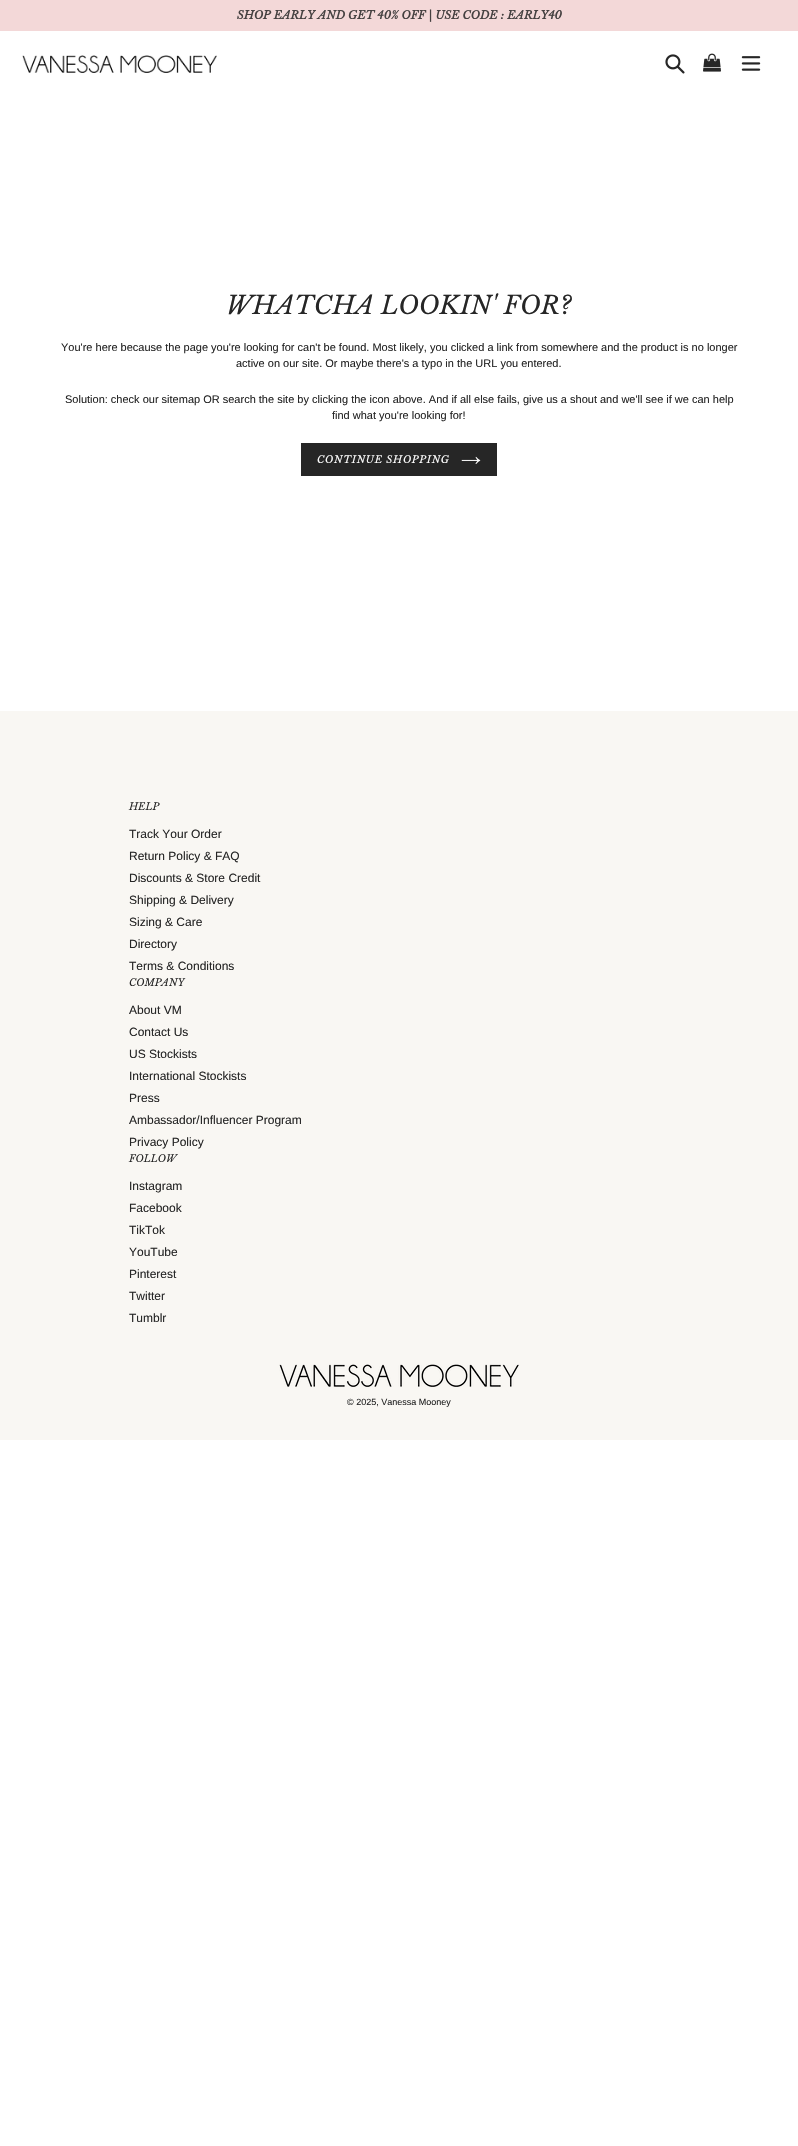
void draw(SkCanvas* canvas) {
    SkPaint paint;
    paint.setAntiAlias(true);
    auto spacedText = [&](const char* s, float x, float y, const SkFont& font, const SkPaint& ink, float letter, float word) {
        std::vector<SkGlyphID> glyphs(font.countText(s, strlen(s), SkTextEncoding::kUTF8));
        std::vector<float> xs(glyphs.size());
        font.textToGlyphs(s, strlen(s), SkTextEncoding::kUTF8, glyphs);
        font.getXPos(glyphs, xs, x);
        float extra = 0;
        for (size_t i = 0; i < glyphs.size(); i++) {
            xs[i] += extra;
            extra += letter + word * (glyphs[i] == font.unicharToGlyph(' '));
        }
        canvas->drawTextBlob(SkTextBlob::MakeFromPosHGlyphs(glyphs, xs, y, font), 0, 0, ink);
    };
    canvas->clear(0xFFFFFFFF);
    paint.setColor(0xFFF3D8D8);
    canvas->drawRect(SkRect::MakeXYWH(0, 0, 798, 31), paint);
    SkFont font1(fontMgr->matchFamilyStyle("Libre Baskerville", SkFontStyle::BoldItalic()), 11.2f);
    font1.setSubpixel(true);
    paint.setColor(0xFF454141);
    canvas->drawString("SHOP EARLY AND GET 40% OFF | USE CODE : EARLY40", 237, 19, font1, paint);
    canvas->drawImageRect(SkImages::DeferredFromEncodedData(SkData::MakeFromFileName("img1.png")), SkRect::MakeXYWH(22, 55, 195, 18), SkSamplingOptions());
    canvas->drawImageRect(SkImages::DeferredFromEncodedData(SkData::MakeFromFileName("img2.png")), SkRect::MakeXYWH(665, 54, 20, 20), SkSamplingOptions());
    canvas->drawImageRect(SkImages::DeferredFromEncodedData(SkData::MakeFromFileName("img3.png")), SkRect::MakeXYWH(703, 53, 18, 19), SkSamplingOptions());
    canvas->drawImageRect(SkImages::DeferredFromEncodedData(SkData::MakeFromFileName("img4.png")), SkRect::MakeXYWH(741, 56, 20, 15), SkSamplingOptions());
    SkFont font2(fontMgr->matchFamilyStyle("Libre Baskerville", SkFontStyle::Italic()), 25);
    font2.setSubpixel(true);
    paint.setColor(0xFF262626);
    canvas->drawString("WHATCHA LOOKIN' FOR?", 226, 314, font2, paint);
    SkFont font3(fontMgr->matchFamilyStyle("Liberation Sans", SkFontStyle::Normal()), 11);
    font3.setSubpixel(true);
    canvas->drawString("You're here because the page you're looking for can't be found. Most likely, you clicked a link from somewhere and the product is no longer", 61, 351, font3, paint);
    canvas->drawString("active on our site. Or maybe there's a typo in the URL you entered.", 236, 367, font3, paint);
    canvas->drawString("Solution: check our sitemap OR search the site by clicking the icon above. And if all else fails, give us a shout and we'll see if we can help", 65, 403, font3, paint);
    canvas->drawString("find what you're looking for!", 332, 419, font3, paint);
    canvas->drawRect(SkRect::MakeXYWH(301, 443, 196, 33), paint);
    SkFont font4(fontMgr->matchFamilyStyle("Libre Baskerville", SkFontStyle::Italic()), 10);
    font4.setSubpixel(true);
    paint.setColor(0xFFFFFFFF);
    spacedText("CONTINUE SHOPPING", 317, 463, font4, paint, 0.75f, 0);
    canvas->drawImageRect(SkImages::DeferredFromEncodedData(SkData::MakeFromFileName("img5.png")), SkRect::MakeXYWH(461, 456, 20, 8), SkSamplingOptions());
    paint.setColor(0xFFF9F7F3);
    canvas->drawRect(SkRect::MakeXYWH(0, 711, 798, 729), paint);
    paint.setColor(0xFF262626);
    canvas->drawString("HELP", 129, 810, font4, paint);
    SkFont font5(fontMgr->matchFamilyStyle("Liberation Sans", SkFontStyle::Normal()), 12);
    font5.setSubpixel(true);
    canvas->drawString("Track Your Order", 129, 838, font5, paint);
    canvas->drawString("Return Policy & FAQ", 129, 860, font5, paint);
    canvas->drawString("Discounts & Store Credit", 129, 882, font5, paint);
    canvas->drawString("Shipping & Delivery", 129, 904, font5, paint);
    canvas->drawString("Sizing & Care", 129, 926, font5, paint);
    canvas->drawString("Directory", 129, 948, font5, paint);
    canvas->drawString("Terms & Conditions", 129, 970, font5, paint);
    canvas->drawString("COMPANY", 129, 986, font4, paint);
    canvas->drawString("About VM", 129, 1014, font5, paint);
    canvas->drawString("Contact Us", 129, 1036, font5, paint);
    canvas->drawString("US Stockists", 129, 1058, font5, paint);
    canvas->drawString("International Stockists", 129, 1080, font5, paint);
    canvas->drawString("Press", 129, 1102, font5, paint);
    canvas->drawString("Ambassador/Influencer Program", 129, 1124, font5, paint);
    canvas->drawString("Privacy Policy", 129, 1146, font5, paint);
    canvas->drawString("FOLLOW", 129, 1162, font4, paint);
    canvas->drawString("Instagram", 129, 1190, font5, paint);
    canvas->drawString("Facebook", 129, 1212, font5, paint);
    canvas->drawString("TikTok", 129, 1234, font5, paint);
    canvas->drawString("YouTube", 129, 1256, font5, paint);
    canvas->drawString("Pinterest", 129, 1278, font5, paint);
    canvas->drawString("Twitter", 129, 1300, font5, paint);
    canvas->drawString("Tumblr", 129, 1322, font5, paint);
    canvas->drawImageRect(SkImages::DeferredFromEncodedData(SkData::MakeFromFileName("img6.png")), SkRect::MakeXYWH(279, 1364, 240, 23), SkSamplingOptions());
    SkFont font6(fontMgr->matchFamilyStyle("Liberation Sans", SkFontStyle::Normal()), 9);
    font6.setSubpixel(true);
    canvas->drawString("© 2025, Vanessa Mooney", 347, 1405, font6, paint);
}
